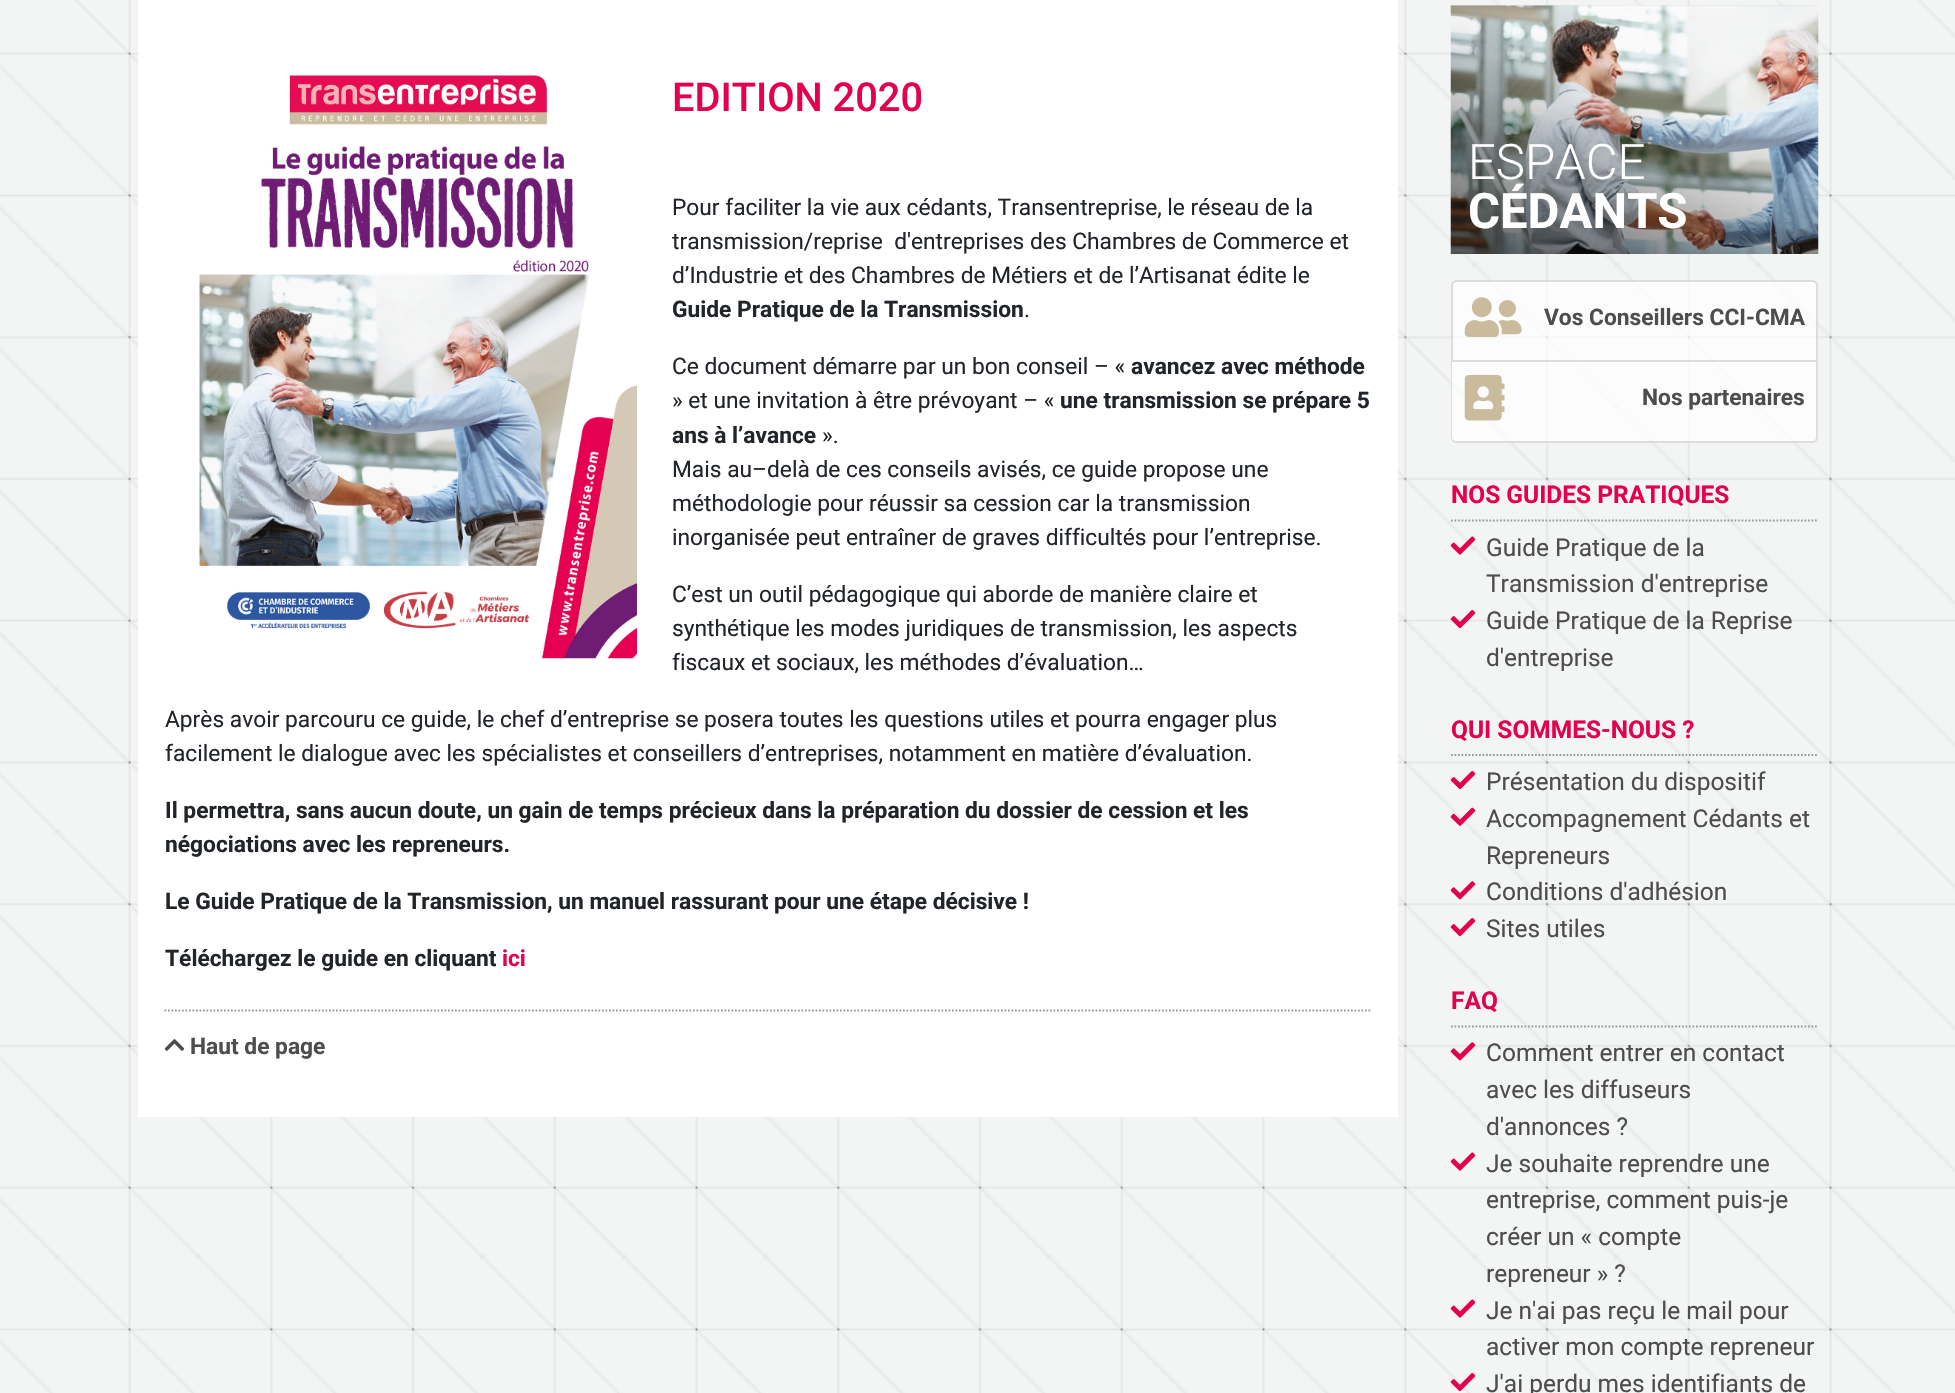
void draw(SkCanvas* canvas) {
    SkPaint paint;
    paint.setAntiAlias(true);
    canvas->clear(0xFFFFFFFF);
    canvas->drawImageRect(SkImages::DeferredFromEncodedData(SkData::MakeFromFileName("img1.png")), SkRect::MakeXYWH(0, 0, 1955, 1393), SkSamplingOptions());
    paint.setColor(0xFFFFFFFF);
    canvas->drawRect(SkRect::MakeXYWH(138, 0, 1260, 1117), paint);
    canvas->drawImageRect(SkImages::DeferredFromEncodedData(SkData::MakeFromFileName("img2.png")), SkRect::MakeXYWH(199, 75, 438, 584), SkSamplingOptions());
    SkFont font1(fontMgr->matchFamilyStyle("Roboto", SkFontStyle(500, SkFontStyle::kNormal_Width, SkFontStyle::kUpright_Slant)), 39.75f);
    font1.setSubpixel(true);
    paint.setColor(0xFFE3004F);
    canvas->drawString("EDITION 2020", 672, 111, font1, paint);
    SkFont font2(fontMgr->matchFamilyStyle("Roboto", SkFontStyle::Normal()), 22.75f);
    font2.setSubpixel(true);
    paint.setColor(0xFF212529);
    canvas->drawString("Pour faciliter la vie aux cédants, Transentreprise, le réseau de la", 672, 215, font2, paint);
    canvas->drawString("transmission/reprise  d'entreprises des Chambres de Commerce et", 672, 249, font2, paint);
    canvas->drawString("d’Industrie et des Chambres de Métiers et de l’Artisanat édite le", 672, 283, font2, paint);
    SkFont font3(fontMgr->matchFamilyStyle("Roboto", SkFontStyle::Bold()), 22.75f);
    font3.setSubpixel(true);
    canvas->drawString("Guide Pratique de la Transmission", 672, 317, font3, paint);
    canvas->drawString(".", 1024, 317, font2, paint);
    canvas->drawString("Ce document démarre par un bon conseil – «", 672, 374, font2, paint);
    canvas->drawString("avancez avec méthode", 1131, 374, font3, paint);
    canvas->drawString("» et une invitation à être prévoyant – «", 672, 408, font2, paint);
    canvas->drawString("une transmission se prépare 5", 1060, 408, font3, paint);
    canvas->drawString("ans à l’avance", 672, 443, font3, paint);
    canvas->drawString("».", 822, 443, font2, paint);
    canvas->drawString("Mais au–delà de ces conseils avisés, ce guide propose une", 672, 477, font2, paint);
    canvas->drawString("méthodologie pour réussir sa cession car la transmission", 672, 511, font2, paint);
    canvas->drawString("inorganisée peut entraîner de graves difficultés pour l’entreprise.", 672, 545, font2, paint);
    canvas->drawString("C’est un outil pédagogique qui aborde de manière claire et", 672, 602, font2, paint);
    canvas->drawString("synthétique les modes juridiques de transmission, les aspects", 672, 636, font2, paint);
    canvas->drawString("fiscaux et sociaux, les méthodes d’évaluation…", 672, 670, font2, paint);
    canvas->drawString("Après avoir parcouru ce guide, le chef d’entreprise se posera toutes les questions utiles et pourra engager plus", 165, 727, font2, paint);
    canvas->drawString("facilement le dialogue avec les spécialistes et conseillers d’entreprises, notamment en matière d’évaluation.", 165, 761, font2, paint);
    canvas->drawString("Il permettra, sans aucun doute, un gain de temps précieux dans la préparation du dossier de cession et les", 165, 818, font3, paint);
    canvas->drawString("négociations avec les repreneurs.", 165, 852, font3, paint);
    canvas->drawString("Le Guide Pratique de la Transmission, un manuel rassurant pour une étape décisive !", 165, 909, font3, paint);
    canvas->drawString("Téléchargez le guide en cliquant", 165, 966, font3, paint);
    paint.setColor(0xFFE3004F);
    canvas->drawString("ici", 502, 966, font3, paint);
    paint.setStyle(SkPaint::kStroke_Style);
    paint.setStrokeWidth(1.8f);
    paint.setColor(0xFF9A9A9A);
    paint.setPathEffect(SkDashPathEffect::Make({{1.75f, 1.75f}}, 0));
    canvas->drawPath(SkPathBuilder().moveTo(164.5f, 1010.5f).lineTo(1372, 1010.5f).detach(), paint);
    paint.setPathEffect(nullptr);
    canvas->drawImageRect(SkImages::DeferredFromEncodedData(SkData::MakeFromFileName("img3.png")), SkRect::MakeXYWH(164, 1039, 21, 12), SkSamplingOptions());
    paint.setStyle(SkPaint::kFill_Style);
    paint.setColor(0xFF4D4D4D);
    canvas->drawString("Haut de page", 190, 1054, font3, paint);
    paint.setColor(0x59B6B6B7);
    canvas->drawRect(SkRect::MakeXYWH(1451, 5, 367, 1), paint);
    canvas->drawImageRect(SkImages::DeferredFromEncodedData(SkData::MakeFromFileName("img4.png")), SkRect::MakeXYWH(1450, 5, 369, 249), SkSamplingOptions());
    SkFont font4(fontMgr->matchFamilyStyle("Roboto", SkFontStyle(300, SkFontStyle::kNormal_Width, SkFontStyle::kUpright_Slant)), 49);
    font4.setSubpixel(true);
    paint.setColor(0xFFFFFFFF);
    canvas->drawString("ESPACE", 1468, 179, font4, paint);
    SkFont font5(fontMgr->matchFamilyStyle("Roboto", SkFontStyle::Bold()), 49);
    font5.setSubpixel(true);
    canvas->drawString("CÉDANTS", 1468, 228, font5, paint);
    paint.setColor(0xB3FFFFFF);
    canvas->drawPath(SkPathBuilder().moveTo(1456, 280).lineTo(1813, 280).cubicTo(1816, 280, 1818, 282, 1818, 285).lineTo(1818, 362).lineTo(1451, 362).lineTo(1451, 285).cubicTo(1451, 282, 1453, 280, 1456, 280).close().detach(), paint);
    paint.setStyle(SkPaint::kStroke_Style);
    paint.setStrokeWidth(2);
    paint.setColor(0x1F000000);
    canvas->drawPath(SkPathBuilder().moveTo(1456, 281).lineTo(1813, 281).cubicTo(1815, 281, 1817, 283, 1817, 285).lineTo(1817, 361).lineTo(1452, 361).lineTo(1452, 285).cubicTo(1452, 283, 1454, 281, 1456, 281).close().detach(), paint);
    canvas->drawImageRect(SkImages::DeferredFromEncodedData(SkData::MakeFromFileName("img5.png")), SkRect::MakeXYWH(1464, 297, 58, 41), SkSamplingOptions());
    paint.setStyle(SkPaint::kFill_Style);
    paint.setColor(0xFF4D4D4D);
    canvas->drawString("Vos Conseillers CCI-CMA", 1544, 325, font3, paint);
    paint.setColor(0xB3FFFFFF);
    canvas->drawPath(SkPathBuilder().moveTo(1451, 362).lineTo(1818, 362).lineTo(1818, 438).cubicTo(1818, 441, 1816, 443, 1813, 443).lineTo(1456, 443).cubicTo(1453, 443, 1451, 441, 1451, 438).close().detach(), paint);
    paint.setColor(0x1F000000);
    canvas->drawPath(SkPathBuilder(SkPathFillType::kEvenOdd).moveTo(1451, 362).lineTo(1818, 362).lineTo(1818, 437).cubicTo(1818, 440, 1816, 443, 1813, 443).lineTo(1456, 443).cubicTo(1453, 443, 1451, 440, 1451, 437).close().moveTo(1452, 362).lineTo(1816, 362).lineTo(1816, 437).cubicTo(1816, 439, 1815, 441, 1813, 441).lineTo(1456, 441).cubicTo(1454, 441, 1452, 439, 1452, 437).close().detach(), paint);
    canvas->drawImageRect(SkImages::DeferredFromEncodedData(SkData::MakeFromFileName("img6.png")), SkRect::MakeXYWH(1464, 374, 41, 47), SkSamplingOptions());
    paint.setColor(0xFF4D4D4D);
    canvas->drawString("Nos partenaires", 1642, 405, font3, paint);
    paint.setStyle(SkPaint::kStroke_Style);
    paint.setStrokeWidth(1.8f);
    paint.setColor(0xFF9A9A9A);
    paint.setPathEffect(SkDashPathEffect::Make({{1.75f, 1.75f}}, 0));
    canvas->drawPath(SkPathBuilder().moveTo(1451, 520.5f).lineTo(1818, 520.5f).detach(), paint);
    paint.setPathEffect(nullptr);
    SkFont font6(fontMgr->matchFamilyStyle("Roboto", SkFontStyle::Bold()), 24.5f);
    font6.setSubpixel(true);
    paint.setStyle(SkPaint::kFill_Style);
    paint.setColor(0xFFE3004F);
    canvas->drawString("NOS GUIDES PRATIQUES", 1451, 503, font6, paint);
    canvas->drawImageRect(SkImages::DeferredFromEncodedData(SkData::MakeFromFileName("img7.png")), SkRect::MakeXYWH(1450, 536, 26, 19), SkSamplingOptions());
    SkFont font7(fontMgr->matchFamilyStyle("Roboto", SkFontStyle::Normal()), 24.5f);
    font7.setSubpixel(true);
    paint.setColor(0xFF4D4D4D);
    canvas->drawString("Guide Pratique de la", 1486, 556, font7, paint);
    canvas->drawString("Transmission d'entreprise", 1486, 592, font7, paint);
    canvas->drawImageRect(SkImages::DeferredFromEncodedData(SkData::MakeFromFileName("img8.png")), SkRect::MakeXYWH(1450, 609, 26, 20), SkSamplingOptions());
    canvas->drawString("Guide Pratique de la Reprise", 1486, 629, font7, paint);
    canvas->drawString("d'entreprise", 1486, 666, font7, paint);
    paint.setStyle(SkPaint::kStroke_Style);
    paint.setColor(0xFF9A9A9A);
    paint.setPathEffect(SkDashPathEffect::Make({{1.75f, 1.75f}}, 0));
    canvas->drawPath(SkPathBuilder().moveTo(1451, 755).lineTo(1818, 755).detach(), paint);
    paint.setPathEffect(nullptr);
    paint.setStyle(SkPaint::kFill_Style);
    paint.setColor(0xFFE3004F);
    canvas->drawString("QUI SOMMES-NOUS ?", 1451, 738, font6, paint);
    canvas->drawImageRect(SkImages::DeferredFromEncodedData(SkData::MakeFromFileName("img9.png")), SkRect::MakeXYWH(1450, 770, 26, 20), SkSamplingOptions());
    paint.setColor(0xFF4D4D4D);
    canvas->drawString("Présentation du dispositif", 1486, 790, font7, paint);
    canvas->drawImageRect(SkImages::DeferredFromEncodedData(SkData::MakeFromFileName("img10.png")), SkRect::MakeXYWH(1450, 807, 26, 19), SkSamplingOptions());
    canvas->drawString("Accompagnement Cédants et", 1486, 827, font7, paint);
    canvas->drawString("Repreneurs", 1486, 864, font7, paint);
    canvas->drawImageRect(SkImages::DeferredFromEncodedData(SkData::MakeFromFileName("img11.png")), SkRect::MakeXYWH(1450, 881, 26, 19), SkSamplingOptions());
    canvas->drawString("Conditions d'adhésion", 1486, 900, font7, paint);
    canvas->drawImageRect(SkImages::DeferredFromEncodedData(SkData::MakeFromFileName("img9.png")), SkRect::MakeXYWH(1450, 917, 26, 20), SkSamplingOptions());
    canvas->drawString("Sites utiles", 1486, 937, font7, paint);
    paint.setStyle(SkPaint::kStroke_Style);
    paint.setColor(0xFF9A9A9A);
    paint.setPathEffect(SkDashPathEffect::Make({{1.75f, 1.75f}}, 0));
    canvas->drawPath(SkPathBuilder().moveTo(1451, 1026.5f).lineTo(1818, 1026.5f).detach(), paint);
    paint.setPathEffect(nullptr);
    paint.setStyle(SkPaint::kFill_Style);
    paint.setColor(0xFFE3004F);
    canvas->drawString("FAQ", 1451, 1009, font6, paint);
    canvas->drawImageRect(SkImages::DeferredFromEncodedData(SkData::MakeFromFileName("img12.png")), SkRect::MakeXYWH(1450, 1042, 26, 19), SkSamplingOptions());
    paint.setColor(0xFF4D4D4D);
    canvas->drawString("Comment entrer en contact", 1486, 1061, font7, paint);
    canvas->drawString("avec les diffuseurs", 1486, 1098, font7, paint);
    canvas->drawString("d'annonces ?", 1486, 1135, font7, paint);
    canvas->drawImageRect(SkImages::DeferredFromEncodedData(SkData::MakeFromFileName("img13.png")), SkRect::MakeXYWH(1450, 1152, 26, 19), SkSamplingOptions());
    canvas->drawString("Je souhaite reprendre une", 1486, 1172, font7, paint);
    canvas->drawString("entreprise, comment puis-je", 1486, 1208, font7, paint);
    canvas->drawString("créer un « compte", 1486, 1245, font7, paint);
    canvas->drawString("repreneur » ?", 1486, 1282, font7, paint);
    canvas->drawImageRect(SkImages::DeferredFromEncodedData(SkData::MakeFromFileName("img13.png")), SkRect::MakeXYWH(1450, 1299, 26, 19), SkSamplingOptions());
    canvas->drawString("Je n'ai pas reçu le mail pour", 1486, 1319, font7, paint);
    canvas->drawString("activer mon compte repreneur", 1486, 1355, font7, paint);
    canvas->drawImageRect(SkImages::DeferredFromEncodedData(SkData::MakeFromFileName("img14.png")), SkRect::MakeXYWH(1450, 1372, 26, 20), SkSamplingOptions());
    canvas->drawString("J'ai perdu mes identifiants de", 1486, 1392, font7, paint);
}
